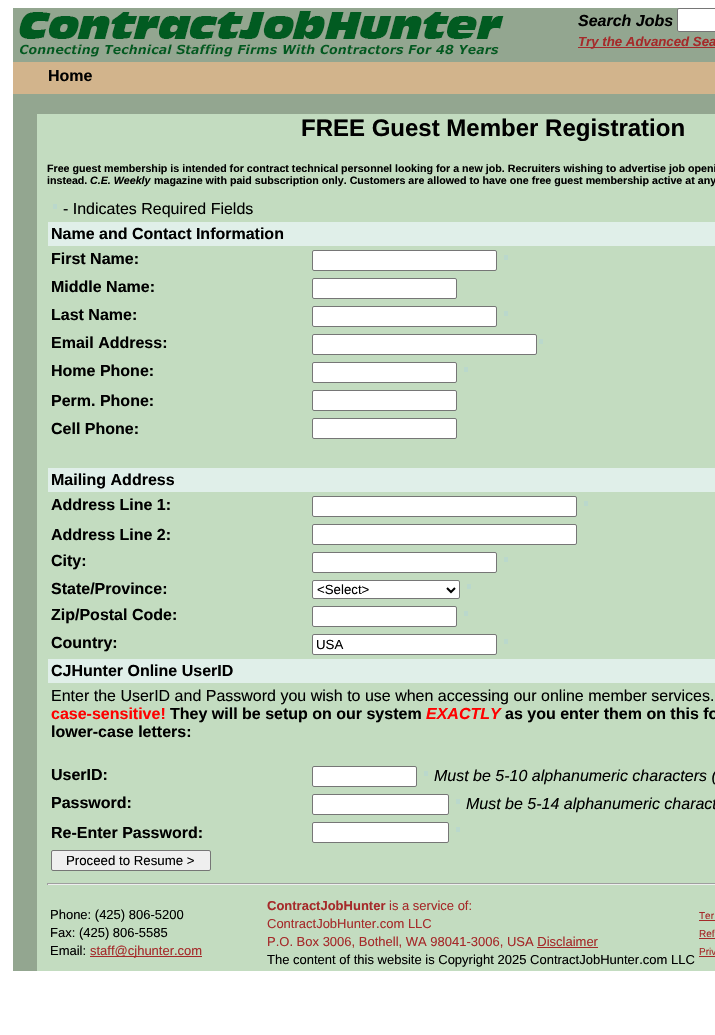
void draw(SkCanvas* canvas) {
    SkPaint paint;
    paint.setAntiAlias(true);
    canvas->clear(0xFFFFFFFF);
    paint.setColor(0xFF93A690);
    canvas->drawRect(SkRect::MakeXYWH(13, 8, 702, 54), paint);
    canvas->drawImageRect(SkImages::DeferredFromEncodedData(SkData::MakeFromFileName("img1.png")), SkRect::MakeXYWH(19, 11, 485, 46), SkSamplingOptions());
    SkFont font1(fontMgr->matchFamilyStyle("Liberation Sans", SkFontStyle::BoldItalic()), 16);
    font1.setSubpixel(true);
    paint.setColor(0xFF000000);
    canvas->drawString("Search Jobs", 578, 26, font1, paint);
    paint.setColor(0xFFFFFFFF);
    canvas->drawRoundRect(SkRect::MakeXYWH(677.5f, 8.5f, 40, 23), 1.5f, 1.5f, paint);
    paint.setStyle(SkPaint::kStroke_Style);
    paint.setStrokeWidth(1);
    paint.setColor(0xFF767676);
    canvas->drawRoundRect(SkRect::MakeXYWH(677.5f, 8.5f, 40, 23), 1.5f, 1.5f, paint);
    paint.setStyle(SkPaint::kFill_Style);
    paint.setColor(0xFFA52A2A);
    canvas->drawRect(SkRect::MakeXYWH(578, 47, 137, 1), paint);
    SkFont font2(fontMgr->matchFamilyStyle("Liberation Sans", SkFontStyle::BoldItalic()), 13.25f);
    font2.setSubpixel(true);
    canvas->drawString("Try the Advanced Sea", 578, 46, font2, paint);
    paint.setColor(0xFF93A690);
    canvas->drawRect(SkRect::MakeXYWH(13, 94, 702, 877), paint);
    paint.setColor(0xFFD2B48C);
    canvas->drawRect(SkRect::MakeXYWH(13, 62, 702, 32), paint);
    SkFont font3(fontMgr->matchFamilyStyle("Liberation Sans", SkFontStyle::Bold()), 16);
    font3.setSubpixel(true);
    paint.setColor(0xFF000000);
    canvas->drawString("Home", 48, 81, font3, paint);
    paint.setColor(0xFFC3DCC0);
    canvas->drawRect(SkRect::MakeXYWH(37, 114, 678, 857), paint);
    SkFont font4(fontMgr->matchFamilyStyle("Liberation Sans", SkFontStyle::Bold()), 24);
    font4.setSubpixel(true);
    paint.setColor(0xFF000000);
    canvas->drawString("FREE Guest Member Registration", 301, 136, font4, paint);
    SkFont font5(fontMgr->matchFamilyStyle("Liberation Sans", SkFontStyle::Bold()), 10.67f);
    font5.setSubpixel(true);
    canvas->drawString("Free guest membership is intended for contract technical personnel looking for a new job. Recruiters wishing to advertise job openi", 47, 172, font5, paint);
    canvas->drawString("instead.", 47, 184, font5, paint);
    SkFont font6(fontMgr->matchFamilyStyle("Liberation Sans", SkFontStyle::BoldItalic()), 10.67f);
    font6.setSubpixel(true);
    canvas->drawString("C.E. Weekly", 90, 184, font6, paint);
    canvas->drawString("magazine with paid subscription only. Customers are allowed to have one free guest membership active at any", 154, 184, font5, paint);
    paint.setColor(0xFFBAD8CC);
    canvas->drawRect(SkRect::MakeXYWH(53, 204, 4, 5), paint);
    SkFont font7(fontMgr->matchFamilyStyle("Liberation Sans", SkFontStyle::Normal()), 16);
    font7.setSubpixel(true);
    paint.setColor(0xFF000000);
    canvas->drawString("- Indicates Required Fields", 63, 214, font7, paint);
    paint.setColor(0xFFE0EFE9);
    canvas->drawRect(SkRect::MakeXYWH(48, 222, 667, 24), paint);
    paint.setColor(0xFF000000);
    canvas->drawString("Name and Contact Information", 51, 239, font3, paint);
    canvas->drawString("First Name:", 51, 264, font3, paint);
    paint.setColor(0xFFFFFFFF);
    canvas->drawRoundRect(SkRect::MakeXYWH(312.5f, 250.5f, 184, 20), 1.5f, 1.5f, paint);
    paint.setStyle(SkPaint::kStroke_Style);
    paint.setColor(0xFF767676);
    canvas->drawRoundRect(SkRect::MakeXYWH(312.5f, 250.5f, 184, 20), 1.5f, 1.5f, paint);
    paint.setStyle(SkPaint::kFill_Style);
    paint.setColor(0xFFBAD8CC);
    canvas->drawRect(SkRect::MakeXYWH(504, 255, 4, 5), paint);
    paint.setColor(0xFF000000);
    canvas->drawString("Middle Name:", 51, 292, font3, paint);
    paint.setColor(0xFFFFFFFF);
    canvas->drawRoundRect(SkRect::MakeXYWH(312.5f, 278.5f, 144, 20), 1.5f, 1.5f, paint);
    paint.setStyle(SkPaint::kStroke_Style);
    paint.setColor(0xFF767676);
    canvas->drawRoundRect(SkRect::MakeXYWH(312.5f, 278.5f, 144, 20), 1.5f, 1.5f, paint);
    paint.setStyle(SkPaint::kFill_Style);
    paint.setColor(0xFF000000);
    canvas->drawString("Last Name:", 51, 320, font3, paint);
    paint.setColor(0xFFFFFFFF);
    canvas->drawRoundRect(SkRect::MakeXYWH(312.5f, 306.5f, 184, 20), 1.5f, 1.5f, paint);
    paint.setStyle(SkPaint::kStroke_Style);
    paint.setColor(0xFF767676);
    canvas->drawRoundRect(SkRect::MakeXYWH(312.5f, 306.5f, 184, 20), 1.5f, 1.5f, paint);
    paint.setStyle(SkPaint::kFill_Style);
    paint.setColor(0xFFBAD8CC);
    canvas->drawRect(SkRect::MakeXYWH(504, 311, 4, 5), paint);
    paint.setColor(0xFF000000);
    canvas->drawString("Email Address:", 51, 348, font3, paint);
    paint.setColor(0xFFFFFFFF);
    canvas->drawRoundRect(SkRect::MakeXYWH(312.5f, 334.5f, 224, 20), 1.5f, 1.5f, paint);
    paint.setStyle(SkPaint::kStroke_Style);
    paint.setColor(0xFF767676);
    canvas->drawRoundRect(SkRect::MakeXYWH(312.5f, 334.5f, 224, 20), 1.5f, 1.5f, paint);
    paint.setStyle(SkPaint::kFill_Style);
    paint.setColor(0xFFBAD8CC);
    canvas->drawRect(SkRect::MakeXYWH(539, 339, 4, 5), paint);
    paint.setColor(0xFF000000);
    canvas->drawString("Home Phone:", 51, 376, font3, paint);
    paint.setColor(0xFFFFFFFF);
    canvas->drawRoundRect(SkRect::MakeXYWH(312.5f, 362.5f, 144, 20), 1.5f, 1.5f, paint);
    paint.setStyle(SkPaint::kStroke_Style);
    paint.setColor(0xFF767676);
    canvas->drawRoundRect(SkRect::MakeXYWH(312.5f, 362.5f, 144, 20), 1.5f, 1.5f, paint);
    paint.setStyle(SkPaint::kFill_Style);
    paint.setColor(0xFFBAD8CC);
    canvas->drawRect(SkRect::MakeXYWH(464, 367, 4, 5), paint);
    paint.setColor(0xFF000000);
    canvas->drawString("Perm. Phone:", 51, 406, font3, paint);
    paint.setColor(0xFFFFFFFF);
    canvas->drawRoundRect(SkRect::MakeXYWH(312.5f, 390.5f, 144, 20), 1.5f, 1.5f, paint);
    paint.setStyle(SkPaint::kStroke_Style);
    paint.setColor(0xFF767676);
    canvas->drawRoundRect(SkRect::MakeXYWH(312.5f, 390.5f, 144, 20), 1.5f, 1.5f, paint);
    paint.setStyle(SkPaint::kFill_Style);
    paint.setColor(0xFF000000);
    canvas->drawString("Cell Phone:", 51, 434, font3, paint);
    paint.setColor(0xFFFFFFFF);
    canvas->drawRoundRect(SkRect::MakeXYWH(312.5f, 418.5f, 144, 20), 1.5f, 1.5f, paint);
    paint.setStyle(SkPaint::kStroke_Style);
    paint.setColor(0xFF767676);
    canvas->drawRoundRect(SkRect::MakeXYWH(312.5f, 418.5f, 144, 20), 1.5f, 1.5f, paint);
    paint.setStyle(SkPaint::kFill_Style);
    paint.setColor(0xFFE0EFE9);
    canvas->drawRect(SkRect::MakeXYWH(48, 468, 667, 24), paint);
    paint.setColor(0xFF000000);
    canvas->drawString("Mailing Address", 51, 485, font3, paint);
    canvas->drawString("Address Line 1:", 51, 510, font3, paint);
    paint.setColor(0xFFFFFFFF);
    canvas->drawRoundRect(SkRect::MakeXYWH(312.5f, 496.5f, 264, 20), 1.5f, 1.5f, paint);
    paint.setStyle(SkPaint::kStroke_Style);
    paint.setColor(0xFF767676);
    canvas->drawRoundRect(SkRect::MakeXYWH(312.5f, 496.5f, 264, 20), 1.5f, 1.5f, paint);
    paint.setStyle(SkPaint::kFill_Style);
    paint.setColor(0xFFBAD8CC);
    canvas->drawRect(SkRect::MakeXYWH(584, 501, 4, 5), paint);
    paint.setColor(0xFF000000);
    canvas->drawString("Address Line 2:", 51, 540, font3, paint);
    paint.setColor(0xFFFFFFFF);
    canvas->drawRoundRect(SkRect::MakeXYWH(312.5f, 524.5f, 264, 20), 1.5f, 1.5f, paint);
    paint.setStyle(SkPaint::kStroke_Style);
    paint.setColor(0xFF767676);
    canvas->drawRoundRect(SkRect::MakeXYWH(312.5f, 524.5f, 264, 20), 1.5f, 1.5f, paint);
    paint.setStyle(SkPaint::kFill_Style);
    paint.setColor(0xFF000000);
    canvas->drawString("City:", 51, 566, font3, paint);
    paint.setColor(0xFFFFFFFF);
    canvas->drawRoundRect(SkRect::MakeXYWH(312.5f, 552.5f, 184, 20), 1.5f, 1.5f, paint);
    paint.setStyle(SkPaint::kStroke_Style);
    paint.setColor(0xFF767676);
    canvas->drawRoundRect(SkRect::MakeXYWH(312.5f, 552.5f, 184, 20), 1.5f, 1.5f, paint);
    paint.setStyle(SkPaint::kFill_Style);
    paint.setColor(0xFFBAD8CC);
    canvas->drawRect(SkRect::MakeXYWH(504, 557, 4, 5), paint);
    paint.setColor(0xFF000000);
    canvas->drawString("State/Province:", 51, 594, font3, paint);
    paint.setColor(0xFFFFFFFF);
    canvas->drawRoundRect(SkRect::MakeXYWH(312.5f, 580.5f, 147, 18), 1.5f, 1.5f, paint);
    paint.setStyle(SkPaint::kStroke_Style);
    paint.setColor(0xFF767676);
    canvas->drawRoundRect(SkRect::MakeXYWH(312.5f, 580.5f, 147, 18), 1.5f, 1.5f, paint);
    paint.setStrokeWidth(2);
    paint.setColor(0xFF000000);
    canvas->drawPath(SkPathBuilder().moveTo(447, 588).lineTo(451, 592).lineTo(455, 588).detach(), paint);
    SkFont font8(fontMgr->matchFamilyStyle("Liberation Sans", SkFontStyle::Normal()), 13.25f);
    font8.setSubpixel(true);
    paint.setStyle(SkPaint::kFill_Style);
    canvas->drawString("<Select>", 317, 594, font8, paint);
    paint.setColor(0xFFBAD8CC);
    canvas->drawRect(SkRect::MakeXYWH(467, 584, 4, 5), paint);
    paint.setColor(0xFF000000);
    canvas->drawString("Zip/Postal Code:", 51, 620, font3, paint);
    paint.setColor(0xFFFFFFFF);
    canvas->drawRoundRect(SkRect::MakeXYWH(312.5f, 606.5f, 144, 20), 1.5f, 1.5f, paint);
    paint.setStyle(SkPaint::kStroke_Style);
    paint.setStrokeWidth(1);
    paint.setColor(0xFF767676);
    canvas->drawRoundRect(SkRect::MakeXYWH(312.5f, 606.5f, 144, 20), 1.5f, 1.5f, paint);
    paint.setStyle(SkPaint::kFill_Style);
    paint.setColor(0xFFBAD8CC);
    canvas->drawRect(SkRect::MakeXYWH(464, 611, 4, 5), paint);
    paint.setColor(0xFF000000);
    canvas->drawString("Country:", 51, 648, font3, paint);
    paint.setColor(0xFFFFFFFF);
    canvas->drawRoundRect(SkRect::MakeXYWH(312.5f, 634.5f, 184, 20), 1.5f, 1.5f, paint);
    paint.setStyle(SkPaint::kStroke_Style);
    paint.setColor(0xFF767676);
    canvas->drawRoundRect(SkRect::MakeXYWH(312.5f, 634.5f, 184, 20), 1.5f, 1.5f, paint);
    paint.setStyle(SkPaint::kFill_Style);
    paint.setColor(0xFF000000);
    canvas->drawString("USA", 316, 649, font8, paint);
    paint.setColor(0xFFBAD8CC);
    canvas->drawRect(SkRect::MakeXYWH(504, 639, 4, 5), paint);
    paint.setColor(0xFFE0EFE9);
    canvas->drawRect(SkRect::MakeXYWH(48, 659, 667, 24), paint);
    paint.setColor(0xFF000000);
    canvas->drawString("CJHunter Online UserID", 51, 676, font3, paint);
    canvas->drawString("Enter the UserID and Password you wish to use when accessing our online member services.", 51, 701, font7, paint);
    paint.setColor(0xFFFF0000);
    canvas->drawString("case-sensitive!", 51, 719, font3, paint);
    paint.setColor(0xFF000000);
    canvas->drawString("They will be setup on our system", 170, 719, font3, paint);
    paint.setColor(0xFFFF0000);
    canvas->drawString("EXACTLY", 426, 719, font1, paint);
    paint.setColor(0xFF000000);
    canvas->drawString("as you enter them on this fo", 505, 719, font3, paint);
    canvas->drawString("lower-case letters:", 51, 737, font3, paint);
    canvas->drawString("UserID:", 51, 780, font3, paint);
    paint.setColor(0xFFFFFFFF);
    canvas->drawRoundRect(SkRect::MakeXYWH(312.5f, 766.5f, 104, 20), 1.5f, 1.5f, paint);
    paint.setStyle(SkPaint::kStroke_Style);
    paint.setColor(0xFF767676);
    canvas->drawRoundRect(SkRect::MakeXYWH(312.5f, 766.5f, 104, 20), 1.5f, 1.5f, paint);
    paint.setStyle(SkPaint::kFill_Style);
    paint.setColor(0xFFBAD8CC);
    canvas->drawRect(SkRect::MakeXYWH(424, 771, 4, 5), paint);
    SkFont font9(fontMgr->matchFamilyStyle("Liberation Sans", SkFontStyle::Italic()), 16);
    font9.setSubpixel(true);
    paint.setColor(0xFF000000);
    canvas->drawString("Must be 5-10 alphanumeric characters (", 434, 781, font9, paint);
    canvas->drawString("Password:", 51, 808, font3, paint);
    paint.setColor(0xFFFFFFFF);
    canvas->drawRoundRect(SkRect::MakeXYWH(312.5f, 794.5f, 136, 20), 1.5f, 1.5f, paint);
    paint.setStyle(SkPaint::kStroke_Style);
    paint.setColor(0xFF767676);
    canvas->drawRoundRect(SkRect::MakeXYWH(312.5f, 794.5f, 136, 20), 1.5f, 1.5f, paint);
    paint.setStyle(SkPaint::kFill_Style);
    paint.setColor(0xFFBAD8CC);
    canvas->drawRect(SkRect::MakeXYWH(456, 799, 4, 5), paint);
    paint.setColor(0xFF000000);
    canvas->drawString("Must be 5-14 alphanumeric charact", 466, 809, font9, paint);
    canvas->drawString("Re-Enter Password:", 51, 838, font3, paint);
    paint.setColor(0xFFFFFFFF);
    canvas->drawRoundRect(SkRect::MakeXYWH(312.5f, 822.5f, 136, 20), 1.5f, 1.5f, paint);
    paint.setStyle(SkPaint::kStroke_Style);
    paint.setColor(0xFF767676);
    canvas->drawRoundRect(SkRect::MakeXYWH(312.5f, 822.5f, 136, 20), 1.5f, 1.5f, paint);
    paint.setStyle(SkPaint::kFill_Style);
    paint.setColor(0xFFBAD8CC);
    canvas->drawRect(SkRect::MakeXYWH(456, 827, 4, 5), paint);
    paint.setColor(0xFFEFEFEF);
    canvas->drawRoundRect(SkRect::MakeXYWH(51.5f, 850.5f, 159, 20), 1.5f, 1.5f, paint);
    paint.setStyle(SkPaint::kStroke_Style);
    paint.setColor(0xFF767676);
    canvas->drawRoundRect(SkRect::MakeXYWH(51.5f, 850.5f, 159, 20), 1.5f, 1.5f, paint);
    paint.setStyle(SkPaint::kFill_Style);
    paint.setColor(0xFF000000);
    canvas->drawString("Proceed to Resume >", 66, 865, font8, paint);
    paint.setColor(0xFF9F9F9F);
    canvas->drawRect(SkRect::MakeXYWH(47, 883, 668, 1), paint);
    paint.setColor(0xFFEEEEEE);
    canvas->drawRect(SkRect::MakeXYWH(47, 884, 668, 1), paint);
    paint.setColor(0xFF9F9F9F);
    canvas->drawRect(SkRect::MakeXYWH(47, 883, 1, 2), paint);
    SkFont font10(fontMgr->matchFamilyStyle("Liberation Sans", SkFontStyle::Normal()), 13);
    font10.setSubpixel(true);
    paint.setColor(0xFF000000);
    canvas->drawString("Phone: (425) 806-5200", 50, 919, font10, paint);
    canvas->drawString("Fax: (425) 806-5585", 50, 937, font10, paint);
    canvas->drawString("Email:", 50, 955, font10, paint);
    paint.setColor(0xFFA52A2A);
    canvas->drawRect(SkRect::MakeXYWH(90, 956, 112, 1), paint);
    canvas->drawString("staff@cjhunter.com", 90, 955, font10, paint);
    SkFont font11(fontMgr->matchFamilyStyle("Liberation Sans", SkFontStyle::Bold()), 13);
    font11.setSubpixel(true);
    canvas->drawString("ContractJobHunter", 267, 910, font11, paint);
    canvas->drawString("is a service of:", 389, 910, font10, paint);
    canvas->drawString("ContractJobHunter.com LLC", 267, 928, font10, paint);
    canvas->drawString("P.O. Box 3006, Bothell, WA 98041-3006, USA Disclaimer", 267, 946, font10, paint);
    canvas->drawRect(SkRect::MakeXYWH(537, 947, 61, 1), paint);
    paint.setColor(0xFF000000);
    canvas->drawString("The content of this website is Copyright 2025 ContractJobHunter.com LLC", 267, 964, font10, paint);
    SkFont font12(fontMgr->matchFamilyStyle("Liberation Sans", SkFontStyle::Normal()), 10);
    font12.setSubpixel(true);
    paint.setColor(0xFFA52A2A);
    canvas->drawString("Ter", 699, 919, font12, paint);
    canvas->drawRect(SkRect::MakeXYWH(699, 920, 16, 1), paint);
    canvas->drawString("Ref", 699, 937, font12, paint);
    canvas->drawRect(SkRect::MakeXYWH(699, 938, 16, 1), paint);
    canvas->drawString("Priv", 699, 955, font12, paint);
    canvas->drawRect(SkRect::MakeXYWH(699, 956, 16, 1), paint);
}
